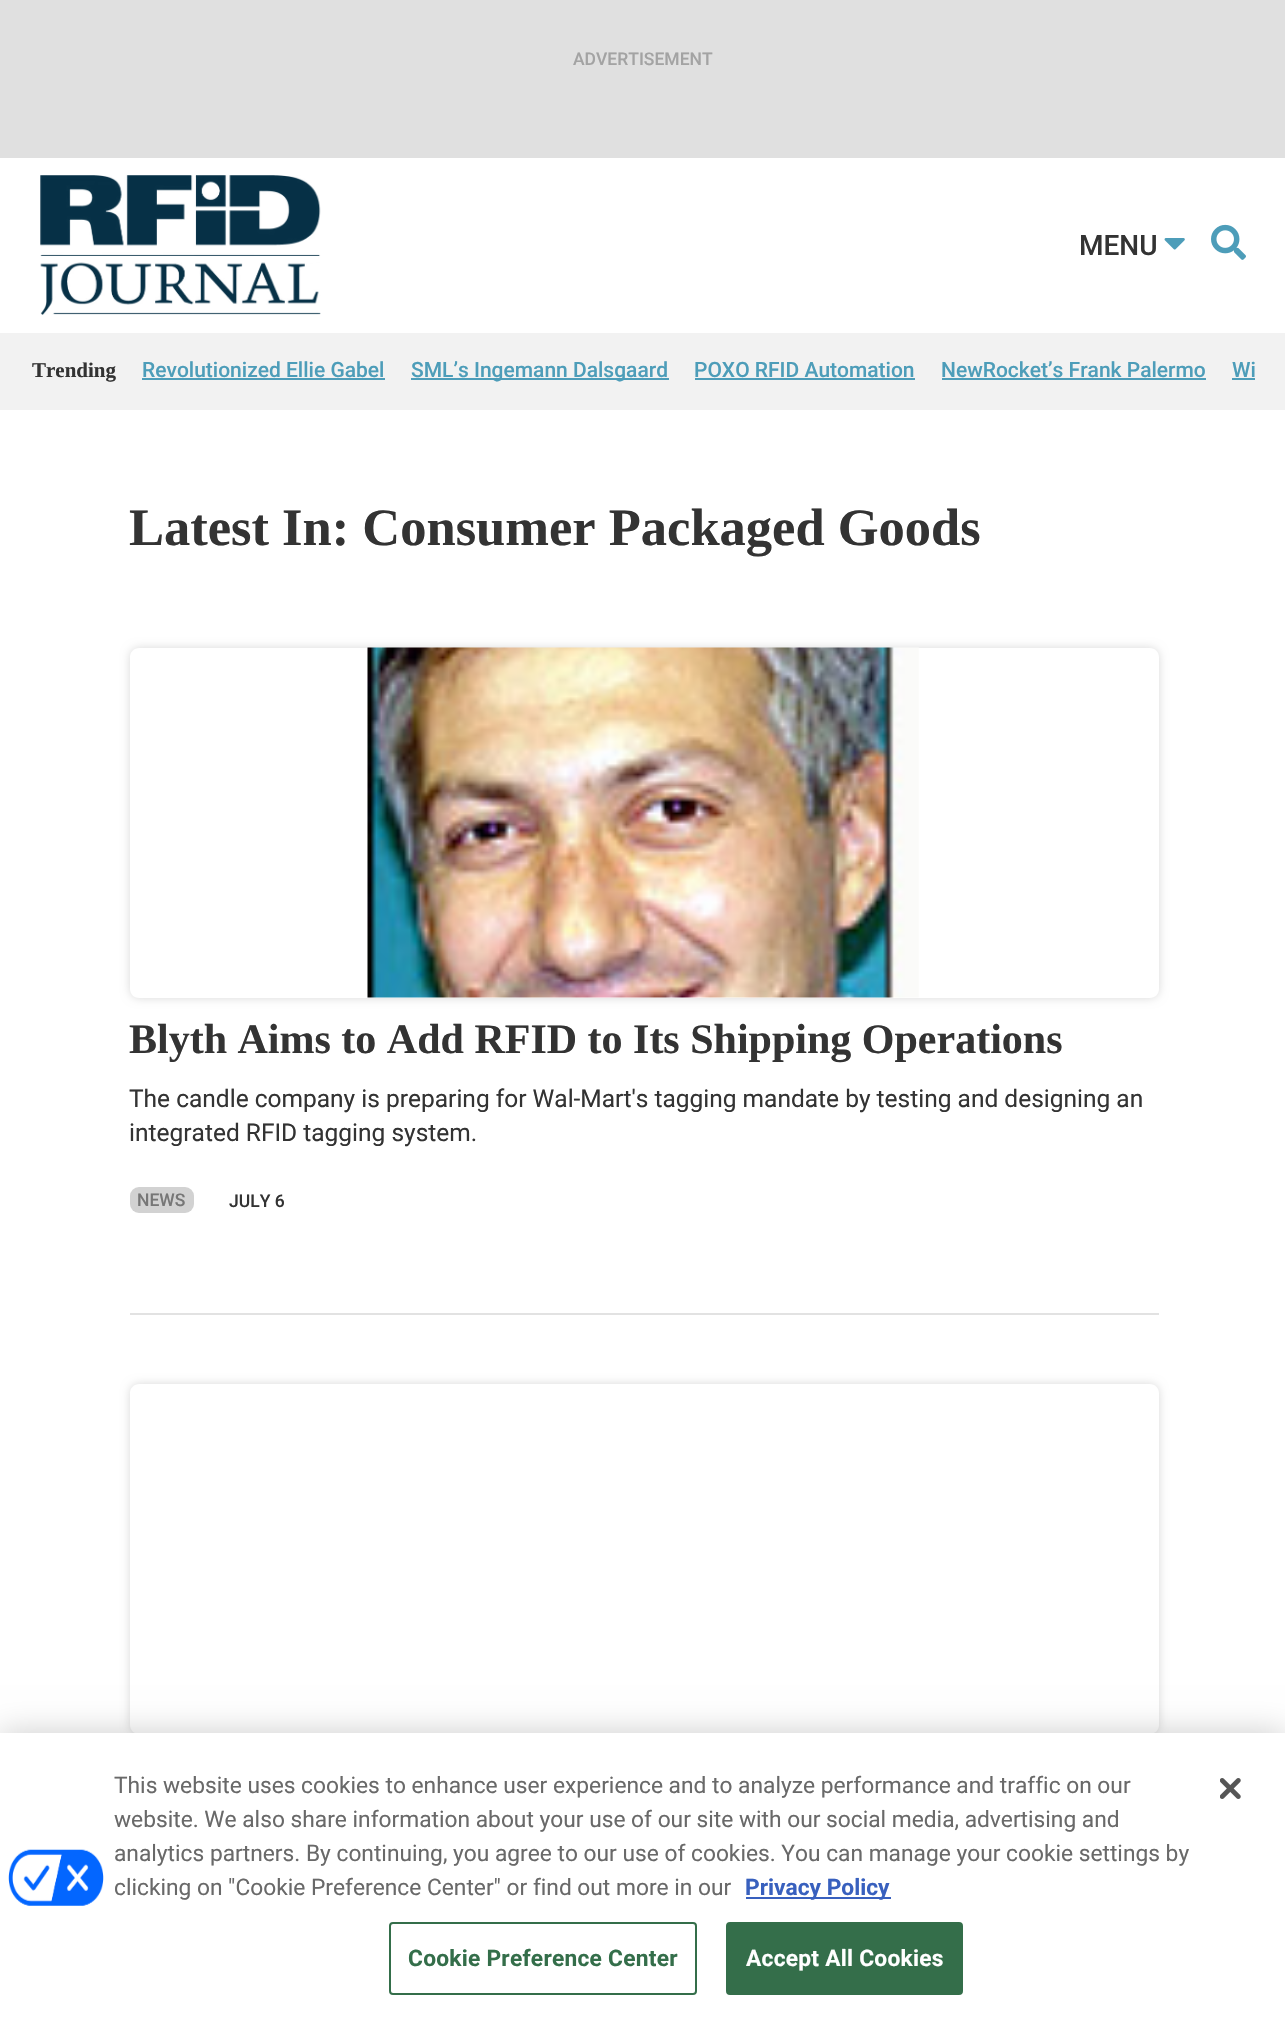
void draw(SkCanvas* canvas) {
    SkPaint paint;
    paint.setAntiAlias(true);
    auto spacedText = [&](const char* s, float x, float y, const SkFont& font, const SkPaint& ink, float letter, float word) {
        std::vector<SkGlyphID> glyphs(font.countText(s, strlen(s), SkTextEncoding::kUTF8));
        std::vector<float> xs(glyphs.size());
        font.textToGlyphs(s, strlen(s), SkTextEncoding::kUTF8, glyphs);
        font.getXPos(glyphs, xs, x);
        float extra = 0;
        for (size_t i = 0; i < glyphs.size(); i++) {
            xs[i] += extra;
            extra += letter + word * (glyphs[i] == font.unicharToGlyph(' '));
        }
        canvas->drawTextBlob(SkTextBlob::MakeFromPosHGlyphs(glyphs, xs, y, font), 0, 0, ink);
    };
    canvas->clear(0xFFFFFFFF);
    paint.setColor(0xFFE0E0E0);
    canvas->drawRect(SkRect::MakeXYWH(0, 0, 1285, 158), paint);
    SkFont font1(fontMgr->matchFamilyStyle("Roboto", SkFontStyle(500, SkFontStyle::kNormal_Width, SkFontStyle::kUpright_Slant)), 17.5f);
    font1.setSubpixel(true);
    paint.setColor(0xFFA3A3A3);
    canvas->drawString("ADVERTISEMENT", 573, 65, font1, paint);
    canvas->drawImageRect(SkImages::DeferredFromEncodedData(SkData::MakeFromFileName("img1.png")), SkRect::MakeXYWH(40, 175, 281, 140), SkSamplingOptions());
    SkFont font2(fontMgr->matchFamilyStyle("Roboto", SkFontStyle(500, SkFontStyle::kNormal_Width, SkFontStyle::kUpright_Slant)), 28);
    font2.setSubpixel(true);
    paint.setColor(0xFF333333);
    canvas->drawString("MENU", 1079, 255, font2, paint);
    canvas->drawImageRect(SkImages::DeferredFromEncodedData(SkData::MakeFromFileName("img2.png")), SkRect::MakeXYWH(1164, 238, 21, 12), SkSamplingOptions());
    canvas->drawImageRect(SkImages::DeferredFromEncodedData(SkData::MakeFromFileName("img3.png")), SkRect::MakeXYWH(1211, 224, 35, 36), SkSamplingOptions());
    paint.setColor(0xFFF2F2F2);
    canvas->drawRect(SkRect::MakeXYWH(0, 333, 1285, 77), paint);
    SkFont font3(fontMgr->matchFamilyStyle("Liberation Serif", SkFontStyle::Bold()), 21);
    font3.setSubpixel(true);
    paint.setColor(0xFF333333);
    canvas->drawString("Trending", 32, 377, font3, paint);
    SkFont font4(fontMgr->matchFamilyStyle("Roboto", SkFontStyle(500, SkFontStyle::kNormal_Width, SkFontStyle::kUpright_Slant)), 21);
    font4.setSubpixel(true);
    paint.setColor(0xFF4D9DB9);
    canvas->drawString("Revolutionized Ellie Gabel", 142, 377, font4, paint);
    canvas->drawRect(SkRect::MakeXYWH(142, 378, 243, 2), paint);
    canvas->drawRect(SkRect::MakeXYWH(411, 378, 258, 2), paint);
    canvas->drawString("SML’s Ingemann Dalsgaard", 411, 377, font4, paint);
    canvas->drawString("POXO RFID Automation", 694, 377, font4, paint);
    canvas->drawRect(SkRect::MakeXYWH(695, 378, 220, 2), paint);
    canvas->drawString("NewRocket’s Frank Palermo", 941, 377, font4, paint);
    canvas->drawRect(SkRect::MakeXYWH(942, 378, 264, 2), paint);
    canvas->drawString("Wi", 1232, 377, font4, paint);
    canvas->drawRect(SkRect::MakeXYWH(1232, 378, 23, 2), paint);
    SkFont font5(fontMgr->matchFamilyStyle("Liberation Serif", SkFontStyle::Bold()), 52.5f);
    font5.setSubpixel(true);
    paint.setColor(0xFF333333);
    canvas->drawString("Latest In: Consumer Packaged Goods", 129, 545, font5, paint);
    paint.setColor(0xFFE2E2E2);
    canvas->drawRect(SkRect::MakeXYWH(130, 1313, 1029, 2), paint);
    canvas->save();
    canvas->clipPath(SkPathBuilder(SkPathFillType::kEvenOdd).moveTo(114, 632).lineTo(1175, 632).lineTo(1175, 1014).lineTo(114, 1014).close().moveTo(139, 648).lineTo(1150, 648).cubicTo(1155, 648, 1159, 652, 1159, 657).lineTo(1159, 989).cubicTo(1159, 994, 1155, 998, 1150, 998).lineTo(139, 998).cubicTo(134, 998, 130, 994, 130, 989).lineTo(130, 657).cubicTo(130, 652, 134, 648, 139, 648).close().detach(), true);
    paint.setColor(0x26000000);
    paint.setMaskFilter(SkMaskFilter::MakeBlur(kNormal_SkBlurStyle, 5));
    canvas->drawRoundRect(SkRect::MakeXYWH(130, 648, 1029, 350), 9, 9, paint);
    paint.setMaskFilter(nullptr);
    canvas->restore();
    canvas->drawImageRect(SkImages::DeferredFromEncodedData(SkData::MakeFromFileName("img4.png")), SkRect::MakeXYWH(367, 647, 552, 351), SkSamplingOptions());
    SkFont font6(fontMgr->matchFamilyStyle("Liberation Serif", SkFontStyle::Bold()), 42);
    font6.setSubpixel(true);
    paint.setColor(0xFF333333);
    canvas->drawString("Blyth Aims to Add RFID to Its Shipping Operations", 129, 1053, font6, paint);
    SkFont font7(fontMgr->matchFamilyStyle("Roboto", SkFontStyle::Normal()), 24.5f);
    font7.setSubpixel(true);
    canvas->drawString("The candle company is preparing for Wal-Mart's tagging mandate by testing and designing an", 129, 1107, font7, paint);
    canvas->drawString("integrated RFID tagging system.", 129, 1141, font7, paint);
    paint.setColor(0xFFD2D2D2);
    canvas->drawRoundRect(SkRect::MakeXYWH(130, 1187, 64, 26), 9, 9, paint);
    paint.setColor(0xFF777777);
    canvas->drawString("NEWS", 137, 1206, font1, paint);
    paint.setColor(0xFF333333);
    canvas->drawString("JULY 6", 229, 1207, font1, paint);
    canvas->save();
    canvas->clipPath(SkPathBuilder(SkPathFillType::kEvenOdd).moveTo(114, 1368).lineTo(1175, 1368).lineTo(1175, 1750).lineTo(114, 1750).close().moveTo(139, 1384).lineTo(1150, 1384).cubicTo(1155, 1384, 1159, 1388, 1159, 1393).lineTo(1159, 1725).cubicTo(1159, 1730, 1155, 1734, 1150, 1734).lineTo(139, 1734).cubicTo(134, 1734, 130, 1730, 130, 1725).lineTo(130, 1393).cubicTo(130, 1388, 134, 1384, 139, 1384).close().detach(), true);
    paint.setColor(0x26000000);
    paint.setMaskFilter(SkMaskFilter::MakeBlur(kNormal_SkBlurStyle, 5));
    canvas->drawRoundRect(SkRect::MakeXYWH(130, 1384, 1029, 350), 9, 9, paint);
    paint.setMaskFilter(nullptr);
    canvas->restore();
    paint.setColor(0x33000000);
    paint.setMaskFilter(SkMaskFilter::MakeBlur(kNormal_SkBlurStyle, 16));
    canvas->drawRect(SkRect::MakeXYWH(0, 1733, 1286, 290), paint);
    paint.setMaskFilter(nullptr);
    paint.setColor(0xFFFFFFFF);
    canvas->drawRect(SkRect::MakeXYWH(0, 1733, 1285, 289), paint);
    canvas->drawImageRect(SkImages::DeferredFromEncodedData(SkData::MakeFromFileName("img5.png")), SkRect::MakeXYWH(8, 1849, 96, 57), SkSamplingOptions());
    SkFont font8(fontMgr->matchFamilyStyle("Roboto", SkFontStyle::Normal()), 22.75f);
    font8.setSubpixel(true);
    paint.setColor(0xFF696969);
    canvas->drawString("This website uses cookies to enhance user experience and to analyze performance and traffic on our", 114, 1793, font8, paint);
    canvas->drawString("website. We also share information about your use of our site with our social media, advertising and", 114, 1827, font8, paint);
    canvas->drawString("analytics partners. By continuing, you agree to our use of cookies. You can manage your cookie settings by", 114, 1861, font8, paint);
    canvas->drawString("clicking on \"Cookie Preference Center\" or find out more in our", 114, 1895, font8, paint);
    paint.setColor(0xFF3860BE);
    canvas->drawRect(SkRect::MakeXYWH(746, 1897, 145, 2), paint);
    SkFont font9(fontMgr->matchFamilyStyle("Roboto", SkFontStyle::Bold()), 22.75f);
    font9.setSubpixel(true);
    canvas->drawString("Privacy Policy", 745, 1895, font9, paint);
    paint.setStyle(SkPaint::kStroke_Style);
    paint.setStrokeWidth(2);
    paint.setColor(0xFF346E4A);
    canvas->drawRoundRect(SkRect::MakeXYWH(390, 1923, 306, 71), 3, 3, paint);
    paint.setStyle(SkPaint::kFill_Style);
    spacedText("Cookie Preference Center", 408, 1966, font9, paint, 0.25f, 0);
    canvas->drawRoundRect(SkRect::MakeXYWH(727, 1923, 235, 71), 3, 3, paint);
    paint.setStyle(SkPaint::kStroke_Style);
    canvas->drawRoundRect(SkRect::MakeXYWH(727, 1923, 235, 71), 3, 3, paint);
    paint.setStyle(SkPaint::kFill_Style);
    paint.setColor(0xFFFFFFFF);
    spacedText("Accept All Cookies", 746, 1966, font9, paint, 0.25f, 0);
    canvas->drawImageRect(SkImages::DeferredFromEncodedData(SkData::MakeFromFileName("img6.png")), SkRect::MakeXYWH(1220, 1778, 21, 21), SkSamplingOptions());
}
